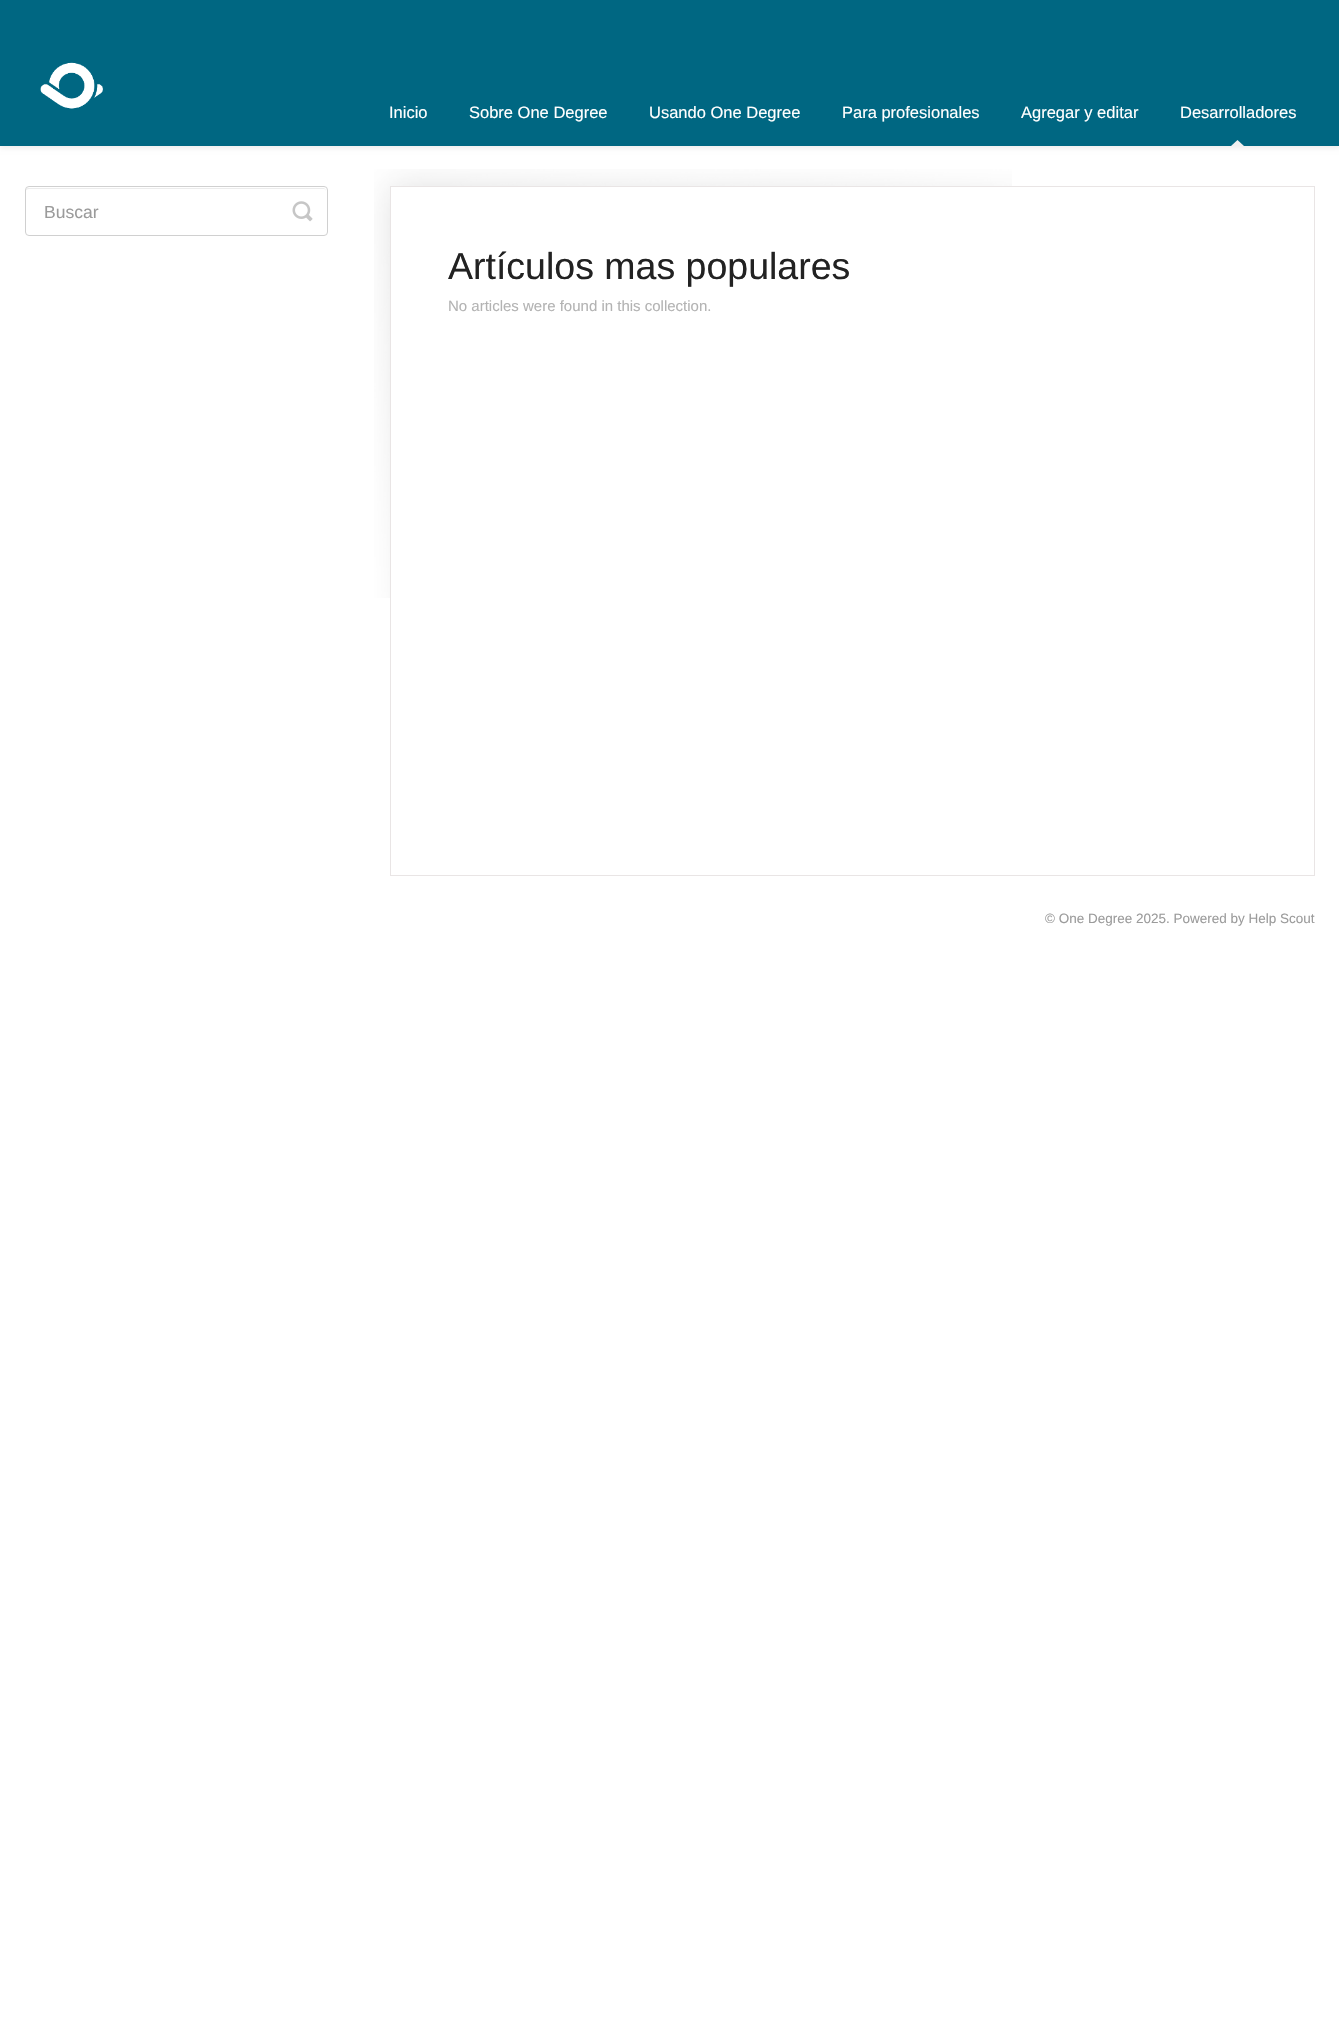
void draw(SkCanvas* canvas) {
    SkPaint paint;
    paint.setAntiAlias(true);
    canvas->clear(0xFFFFFFFF);
    paint.setColor(0x12000000);
    paint.setMaskFilter(SkMaskFilter::MakeBlur(kNormal_SkBlurStyle, 2.5f));
    canvas->drawRect(SkRect::MakeXYWH(0, 1, 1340, 147), paint);
    paint.setMaskFilter(nullptr);
    paint.setColor(0xFF006782);
    canvas->drawRect(SkRect::MakeXYWH(0, 0, 1339, 146), paint);
    canvas->drawImageRect(SkImages::DeferredFromEncodedData(SkData::MakeFromFileName("img1.png")), SkRect::MakeXYWH(40, 62, 63, 47), SkSamplingOptions());
    SkFont font1(fontMgr->matchFamilyStyle("Liberation Sans", SkFontStyle::Normal()), 16.5f);
    font1.setSubpixel(true);
    paint.setColor(0xFFFFFFFF);
    canvas->drawString("Inicio", 389, 118, font1, paint);
    canvas->drawString("Sobre One Degree", 469, 118, font1, paint);
    canvas->drawString("Usando One Degree", 649, 118, font1, paint);
    canvas->drawString("Para profesionales", 842, 118, font1, paint);
    canvas->drawString("Agregar y editar", 1021, 118, font1, paint);
    canvas->drawString("Desarrolladores", 1180, 118, font1, paint);
    paint.setColor(0xFFF0F0F0);
    canvas->drawPath(SkPathBuilder().moveTo(1244, 146).lineTo(1231, 146).lineTo(1237.5f, 140).close().detach(), paint);
    paint.setColor(0xFFECECEC);
    canvas->drawPath(SkPathBuilder().moveTo(29, 189).lineTo(324, 189).cubicTo(325, 189, 326, 190, 326, 191).lineTo(326, 190).lineTo(324, 188).lineTo(28, 188).cubicTo(27, 188, 26, 189, 26, 191).cubicTo(26, 190, 27, 189, 29, 189).close().detach(), paint);
    paint.setStyle(SkPaint::kStroke_Style);
    paint.setStrokeWidth(1);
    paint.setColor(0xFFD0D0D0);
    canvas->drawRoundRect(SkRect::MakeXYWH(25.5f, 186.5f, 302, 49), 3.5f, 3.5f, paint);
    SkFont font2(fontMgr->matchFamilyStyle("Liberation Sans", SkFontStyle::Normal()), 17.5f);
    font2.setSubpixel(true);
    paint.setStyle(SkPaint::kFill_Style);
    paint.setColor(0xFF9B9B9B);
    canvas->drawString("Buscar", 44, 218, font2, paint);
    canvas->drawImageRect(SkImages::DeferredFromEncodedData(SkData::MakeFromFileName("img2.png")), SkRect::MakeXYWH(292, 201, 21, 21), SkSamplingOptions());
    canvas->drawImageRect(SkImages::DeferredFromEncodedData(SkData::MakeFromFileName("img3.png")), SkRect::MakeXYWH(374, 169, 638, 429), SkSamplingOptions());
    paint.setStyle(SkPaint::kStroke_Style);
    paint.setColor(0xFFE9E5E5);
    canvas->drawRect(SkRect::MakeXYWH(390.5f, 186.5f, 924, 689), paint);
    SkFont font3(fontMgr->matchFamilyStyle("Liberation Sans", SkFontStyle::Normal()), 37.5f);
    font3.setSubpixel(true);
    paint.setStyle(SkPaint::kFill_Style);
    paint.setColor(0xFF222222);
    canvas->drawString("Artículos mas populares", 448, 279, font3, paint);
    SkFont font4(fontMgr->matchFamilyStyle("Liberation Sans", SkFontStyle::Normal()), 15);
    font4.setSubpixel(true);
    paint.setColor(0xFFB3B3B3);
    canvas->drawString("No articles were found in this collection.", 448, 311, font4, paint);
    SkFont font5(fontMgr->matchFamilyStyle("Liberation Sans", SkFontStyle::Normal()), 13.5f);
    font5.setSubpixel(true);
    paint.setColor(0xFF9B9B9B);
    canvas->drawString("© One Degree 2025. Powered by Help Scout", 1045, 923, font5, paint);
}
